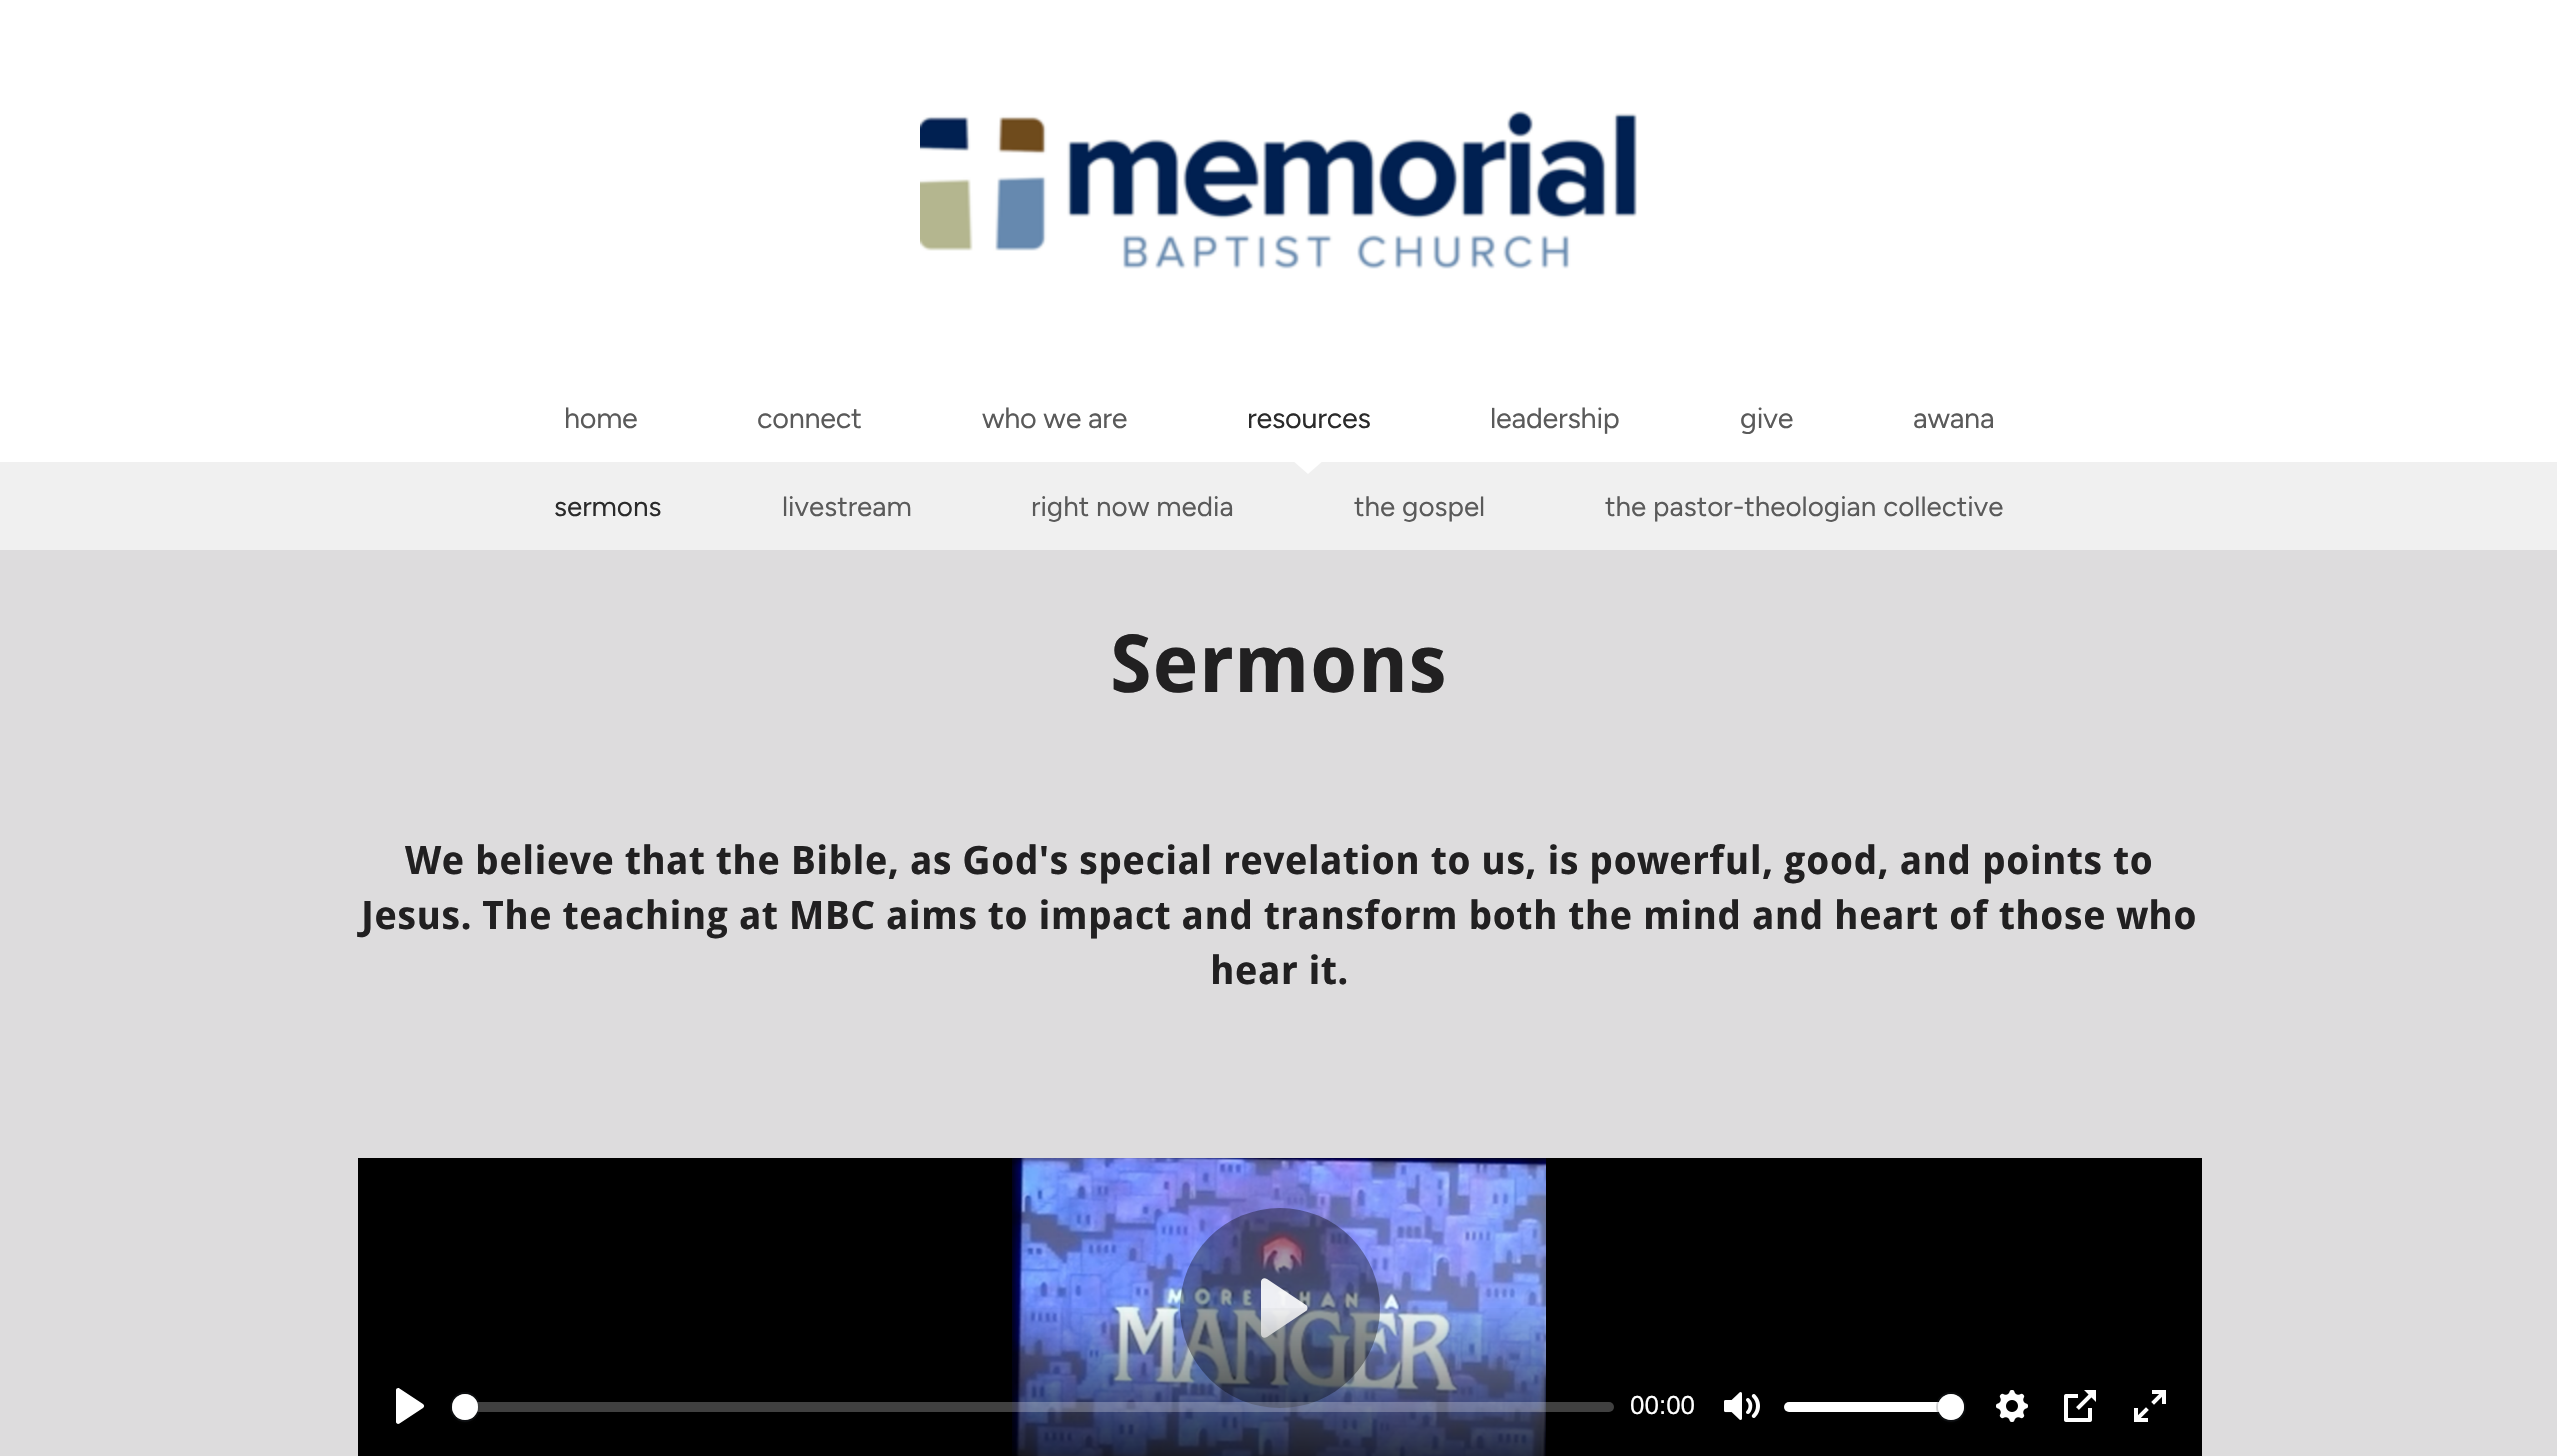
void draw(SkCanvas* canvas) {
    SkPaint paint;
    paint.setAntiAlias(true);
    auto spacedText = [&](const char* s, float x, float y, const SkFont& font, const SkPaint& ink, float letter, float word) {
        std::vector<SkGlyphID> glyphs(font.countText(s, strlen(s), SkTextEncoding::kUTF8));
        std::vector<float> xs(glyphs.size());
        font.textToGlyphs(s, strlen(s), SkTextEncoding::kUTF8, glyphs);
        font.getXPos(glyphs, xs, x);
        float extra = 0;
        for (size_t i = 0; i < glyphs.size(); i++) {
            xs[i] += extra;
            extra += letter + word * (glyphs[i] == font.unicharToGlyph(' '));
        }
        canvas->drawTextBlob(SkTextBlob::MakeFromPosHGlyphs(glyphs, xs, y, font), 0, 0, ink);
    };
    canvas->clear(0xFFDDDCDD);
    paint.setColor(0xFFFFFFFF);
    canvas->drawRect(SkRect::MakeXYWH(0, 0, 2557, 462), paint);
    canvas->drawImageRect(SkImages::DeferredFromEncodedData(SkData::MakeFromFileName("img1.png")), SkRect::MakeXYWH(920, 111, 717, 158), SkSamplingOptions());
    SkFont font1(fontMgr->matchFamilyStyle("Figtree", SkFontStyle(300, SkFontStyle::kNormal_Width, SkFontStyle::kUpright_Slant)), 28.75f);
    font1.setSubpixel(true);
    paint.setColor(0xFF5A5A5A);
    spacedText("home", 564, 428, font1, paint, -0.25f, 0);
    spacedText("connect", 757, 428, font1, paint, -0.25f, 0);
    spacedText("who we are", 982, 428, font1, paint, -0.25f, 0);
    paint.setColor(0xFF2A2A2A);
    spacedText("resources", 1247, 428, font1, paint, -0.25f, 0);
    paint.setColor(0xFFF0F0F0);
    canvas->drawRect(SkRect::MakeXYWH(0, 462, 2557, 88), paint);
    paint.setColor(0xFFFFFFFF);
    canvas->drawPath(SkPathBuilder().moveTo(1292, 460).lineTo(1324, 460).lineTo(1308, 474).close().detach(), paint);
    paint.setColor(0xFF5A5A5A);
    spacedText("leadership", 1490, 428, font1, paint, -0.25f, 0);
    spacedText("give", 1740, 428, font1, paint, -0.25f, 0);
    spacedText("awana", 1913, 428, font1, paint, -0.25f, 0);
    SkFont font2(fontMgr->matchFamilyStyle("Figtree", SkFontStyle(300, SkFontStyle::kNormal_Width, SkFontStyle::kUpright_Slant)), 27.8f);
    font2.setSubpixel(true);
    paint.setColor(0xFF2A2A2A);
    canvas->drawString("sermons", 554, 516, font2, paint);
    paint.setColor(0xFF5A5A5A);
    canvas->drawString("livestream", 782, 516, font2, paint);
    canvas->drawString("right now media", 1031, 516, font2, paint);
    canvas->drawString("the gospel", 1354, 516, font2, paint);
    canvas->drawString("the pastor-theologian collective", 1605, 516, font2, paint);
    SkFont font3(fontMgr->matchFamilyStyle("Droid Sans", SkFontStyle::Bold()), 80);
    font3.setSubpixel(true);
    paint.setColor(0xFF212021);
    spacedText("Sermons", 1110, 692, font3, paint, 0.3f, 0);
    SkFont font4(fontMgr->matchFamilyStyle("Droid Sans", SkFontStyle::Bold()), 39.15f);
    font4.setSubpixel(true);
    spacedText("We believe that the Bible, as God's special revelation to us, is powerful, good, and points to", 405, 874, font4, paint, 0.3f, 0);
    spacedText("Jesus. The teaching at MBC aims to impact and transform both the mind and heart of those who", 361, 929, font4, paint, 0.3f, 0);
    spacedText("hear it.", 1210, 984, font4, paint, 0.3f, 0);
    paint.setColor(0xFF000000);
    canvas->drawRect(SkRect::MakeXYWH(358, 1158, 1844, 298), paint);
    canvas->drawImageRect(SkImages::DeferredFromEncodedData(SkData::MakeFromFileName("img2.png")), SkRect::MakeXYWH(450, 1158, 1516, 298), SkSamplingOptions());
    paint.setColor(0x5C000000);
    canvas->drawCircle(1280, 1308, 100, paint);
    paint.setColor(0xE6FFFFFF);
    canvas->drawPath(SkPathBuilder().moveTo(1306, 1305).lineTo(1267, 1279).cubicTo(1264, 1277, 1261, 1279, 1261, 1282).lineTo(1261, 1334).cubicTo(1261, 1337, 1264, 1339, 1267, 1337).lineTo(1306, 1311).cubicTo(1308, 1310, 1308, 1306, 1306, 1305).close().detach(), paint);
    {
        const SkColor colors[] = {0x00000000, 0xBF000000};
        const float stops[] = {0, 1};
        const SkPoint ends[] = {{1280, 1304}, {1280, 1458}};
        paint.setShader(SkGradientShader::MakeLinear(ends, colors, stops, 2, SkTileMode::kClamp));
        paint.setAlpha(255);
    }
    canvas->drawRect(SkRect::MakeXYWH(450, 1308, 1516, 148), paint);
    paint.setShader(nullptr);
    paint.setColor(0xFFFFFFFF);
    canvas->drawPath(SkPathBuilder().moveTo(423, 1404).lineTo(399.5f, 1388.5f).cubicTo(398, 1387.5f, 396, 1388.5f, 396, 1390).lineTo(396, 1422).cubicTo(396, 1423.5f, 398, 1424.5f, 399.5f, 1423.5f).lineTo(423, 1408).cubicTo(424.5f, 1407, 424.5f, 1405, 423, 1404).close().detach(), paint);
    paint.setColor(0x40FFFFFF);
    canvas->drawRoundRect(SkRect::MakeXYWH(452, 1402, 1162, 10), 5, 5, paint);
    paint.setStyle(SkPaint::kStroke_Style);
    paint.setStrokeWidth(2);
    paint.setColor(0x3323282F);
    canvas->drawCircle(465, 1407, 14, paint);
    paint.setStyle(SkPaint::kFill_Style);
    paint.setColor(0x2623282F);
    paint.setMaskFilter(SkMaskFilter::MakeBlur(kNormal_SkBlurStyle, 1));
    canvas->drawRoundRect(SkRect::MakeXYWH(452, 1396, 26, 26), 13, 13, paint);
    paint.setMaskFilter(nullptr);
    paint.setColor(0xFFFFFFFF);
    canvas->drawCircle(465, 1407, 13, paint);
    SkFont font5(fontMgr->matchFamilyStyle("Liberation Sans", SkFontStyle::Normal()), 26);
    font5.setSubpixel(true);
    canvas->drawString("00:00", 1630, 1414, font5, paint);
    canvas->drawImageRect(SkImages::DeferredFromEncodedData(SkData::MakeFromFileName("img3.png")), SkRect::MakeXYWH(1724, 1392, 36, 28), SkSamplingOptions());
    canvas->drawRoundRect(SkRect::MakeXYWH(1784, 1402, 180, 10), 5, 5, paint);
    paint.setStyle(SkPaint::kStroke_Style);
    paint.setColor(0x3323282F);
    canvas->drawCircle(1951, 1407, 14, paint);
    paint.setStyle(SkPaint::kFill_Style);
    paint.setColor(0x2623282F);
    paint.setMaskFilter(SkMaskFilter::MakeBlur(kNormal_SkBlurStyle, 1));
    canvas->drawRoundRect(SkRect::MakeXYWH(1938, 1396, 26, 26), 13, 13, paint);
    paint.setMaskFilter(nullptr);
    paint.setColor(0xFFFFFFFF);
    canvas->drawCircle(1951, 1407, 13, paint);
    canvas->drawImageRect(SkImages::DeferredFromEncodedData(SkData::MakeFromFileName("img4.png")), SkRect::MakeXYWH(1996, 1390, 32, 32), SkSamplingOptions());
    canvas->drawImageRect(SkImages::DeferredFromEncodedData(SkData::MakeFromFileName("img5.png")), SkRect::MakeXYWH(2064, 1390, 32, 32), SkSamplingOptions());
    canvas->drawImageRect(SkImages::DeferredFromEncodedData(SkData::MakeFromFileName("img6.png")), SkRect::MakeXYWH(2134, 1390, 32, 32), SkSamplingOptions());
}
